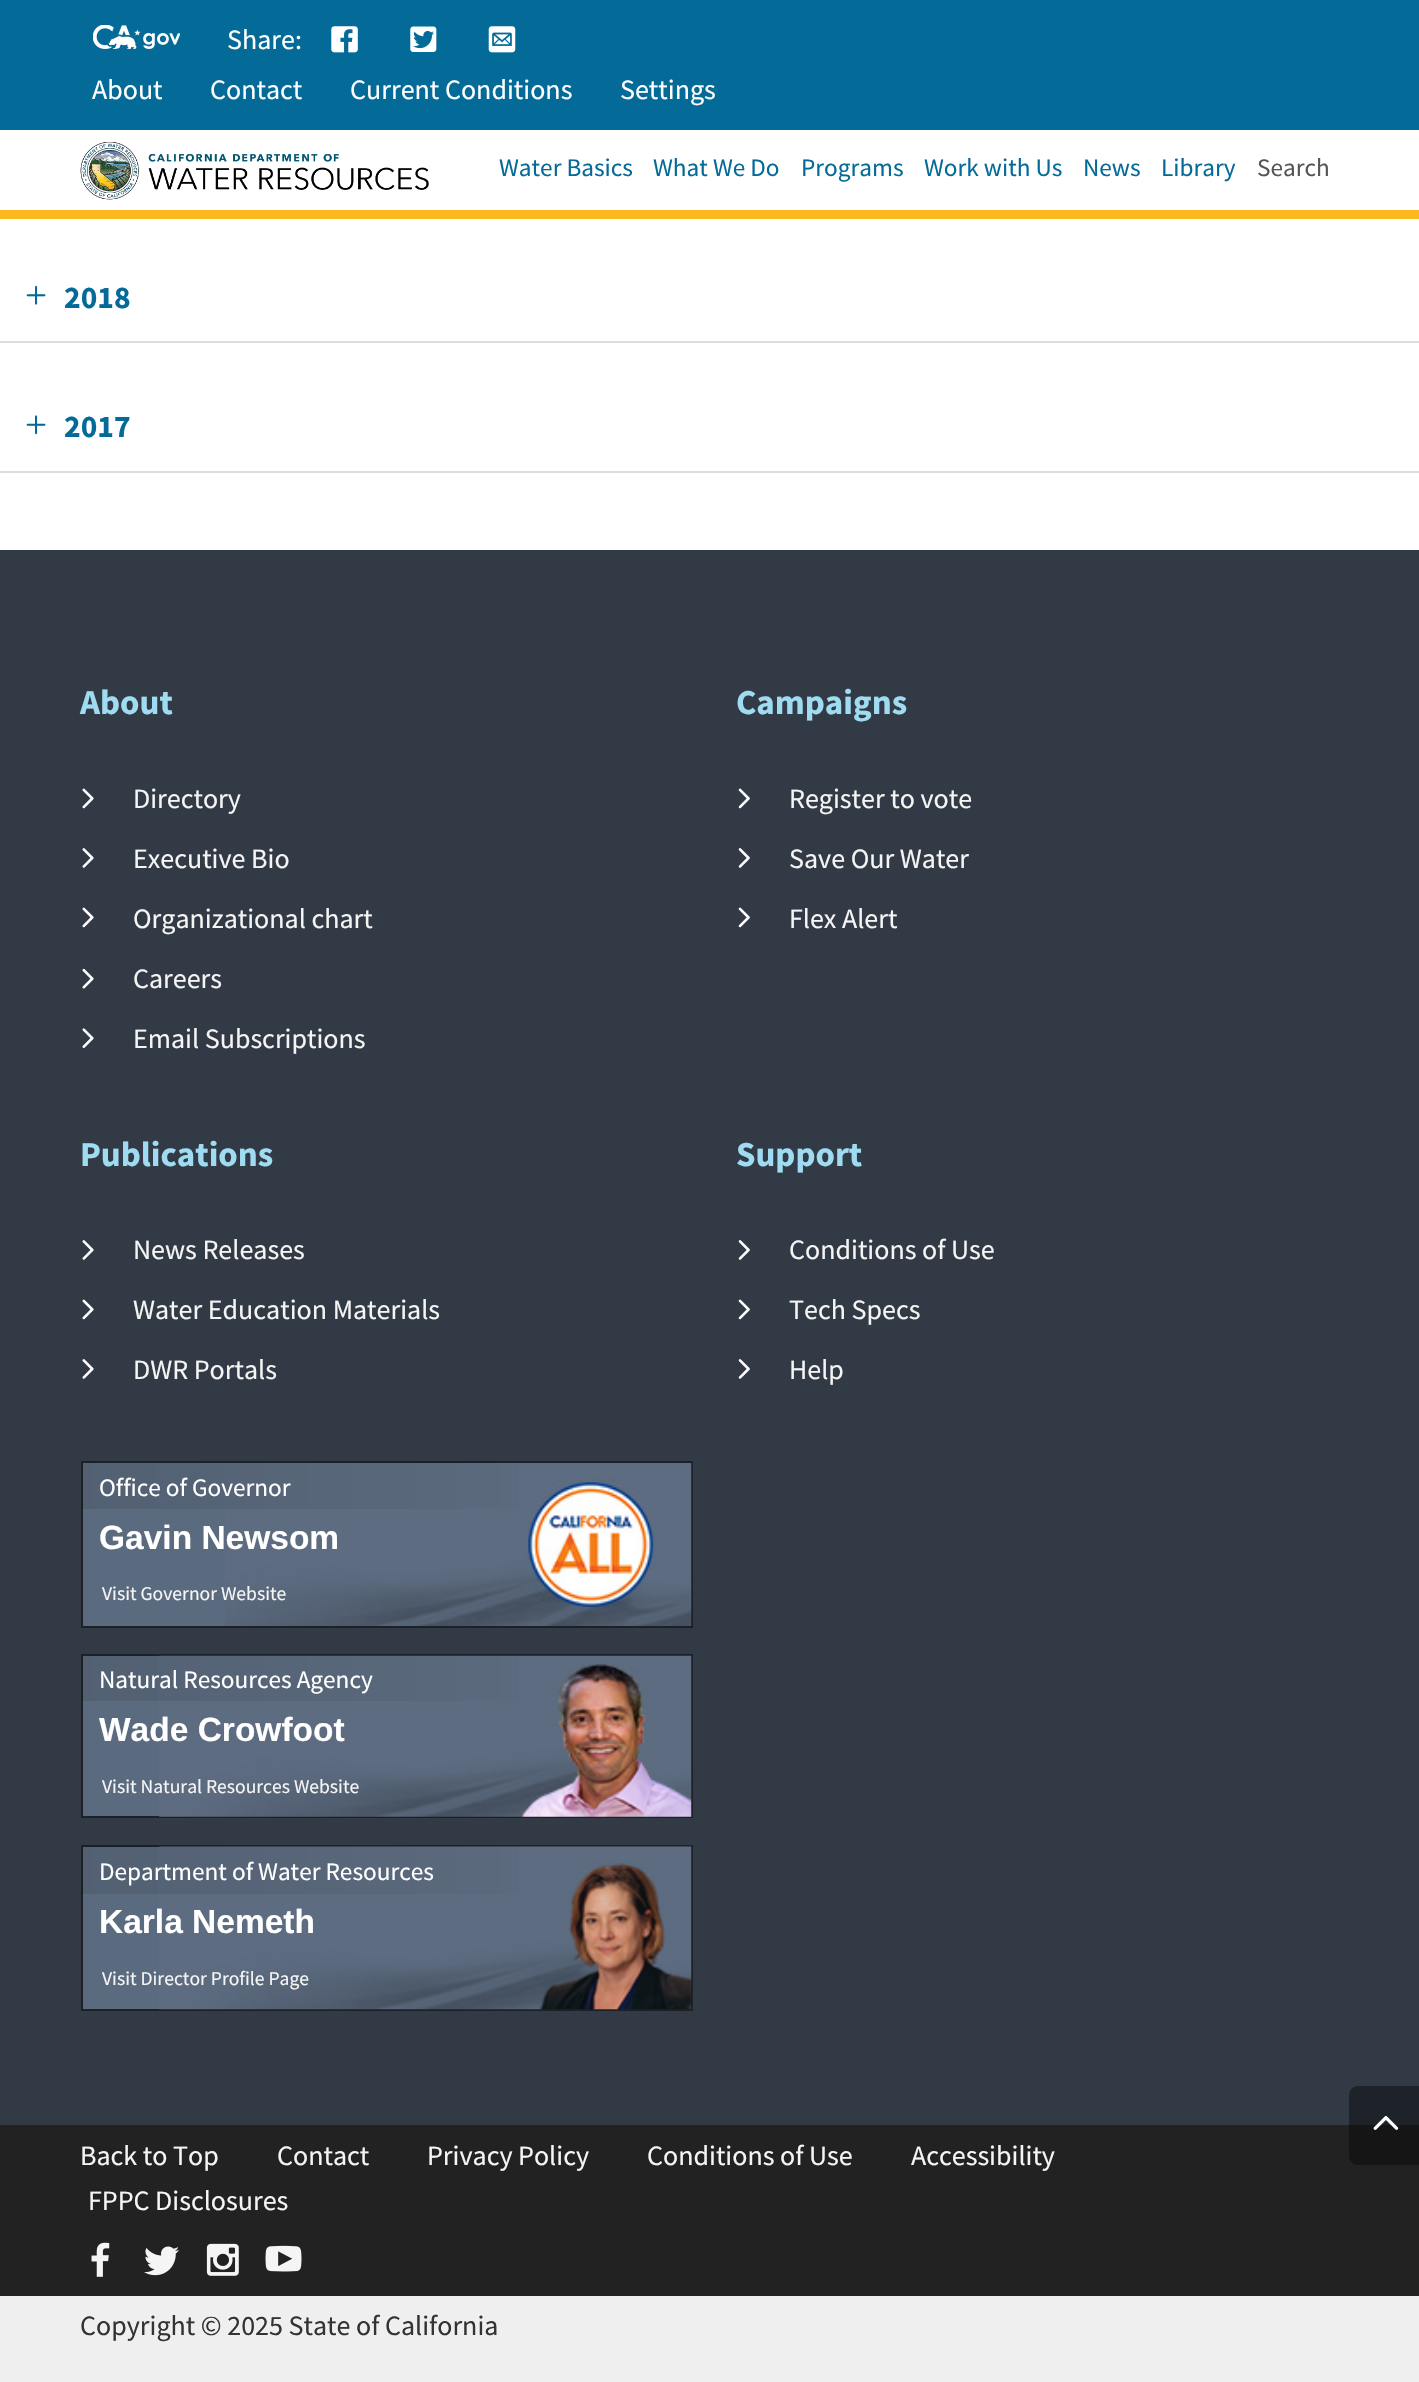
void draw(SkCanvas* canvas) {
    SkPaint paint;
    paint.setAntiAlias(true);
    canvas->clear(0xFFFFFFFF);
    paint.setColor(0xFF046B99);
    canvas->drawRect(SkRect::MakeXYWH(0, 0, 1419, 130), paint);
    canvas->drawImageRect(SkImages::DeferredFromEncodedData(SkData::MakeFromFileName("img1.png")), SkRect::MakeXYWH(93, 25, 87, 24), SkSamplingOptions());
    SkFont font1(fontMgr->matchFamilyStyle("Source Sans Pro", SkFontStyle::Normal()), 28);
    font1.setSubpixel(true);
    paint.setColor(0xFFFFFFFF);
    canvas->drawString("Share:", 227, 49, font1, paint);
    canvas->drawImageRect(SkImages::DeferredFromEncodedData(SkData::MakeFromFileName("img2.png")), SkRect::MakeXYWH(331, 26, 27, 27), SkSamplingOptions());
    canvas->drawImageRect(SkImages::DeferredFromEncodedData(SkData::MakeFromFileName("img3.png")), SkRect::MakeXYWH(410, 26, 27, 26), SkSamplingOptions());
    canvas->drawImageRect(SkImages::DeferredFromEncodedData(SkData::MakeFromFileName("img4.png")), SkRect::MakeXYWH(488, 26, 28, 27), SkSamplingOptions());
    canvas->drawString("About", 92, 99, font1, paint);
    canvas->drawString("Contact", 210, 99, font1, paint);
    canvas->drawString("Current Conditions", 350, 99, font1, paint);
    canvas->drawString("Settings", 620, 99, font1, paint);
    canvas->drawImageRect(SkImages::DeferredFromEncodedData(SkData::MakeFromFileName("img5.png")), SkRect::MakeXYWH(80, 142, 349, 58), SkSamplingOptions());
    paint.setColor(0xFFFDB81E);
    canvas->drawRect(SkRect::MakeXYWH(0, 210, 1419, 9), paint);
    SkFont font2(fontMgr->matchFamilyStyle("Source Sans Pro", SkFontStyle::Normal()), 25.25f);
    font2.setSubpixel(true);
    paint.setColor(0xFF046B99);
    canvas->drawString("Water Basics", 499, 176, font2, paint);
    canvas->drawString("What We Do", 653, 176, font2, paint);
    canvas->drawString("Programs", 801, 176, font2, paint);
    canvas->drawString("Work with Us", 924, 176, font2, paint);
    canvas->drawString("News", 1083, 176, font2, paint);
    canvas->drawString("Library", 1161, 176, font2, paint);
    paint.setColor(0xFF555555);
    canvas->drawString("Search", 1257, 176, font2, paint);
    paint.setColor(0xFFDDDDDD);
    canvas->drawRect(SkRect::MakeXYWH(0, 341, 1419, 2), paint);
    canvas->drawImageRect(SkImages::DeferredFromEncodedData(SkData::MakeFromFileName("img6.png")), SkRect::MakeXYWH(26, 285, 20, 20), SkSamplingOptions());
    SkFont font3(fontMgr->matchFamilyStyle("Source Sans Pro", SkFontStyle::Bold()), 31.5f);
    font3.setSubpixel(true);
    paint.setColor(0xFF046B99);
    canvas->drawString("2018", 64, 308, font3, paint);
    paint.setColor(0xFFDDDDDD);
    canvas->drawRect(SkRect::MakeXYWH(0, 471, 1419, 2), paint);
    canvas->drawImageRect(SkImages::DeferredFromEncodedData(SkData::MakeFromFileName("img7.png")), SkRect::MakeXYWH(26, 415, 20, 20), SkSamplingOptions());
    paint.setColor(0xFF046B99);
    canvas->drawString("2017", 64, 437, font3, paint);
    paint.setColor(0xFF323A45);
    canvas->drawRect(SkRect::MakeXYWH(0, 550, 1419, 1575), paint);
    paint.setColor(0xFF222222);
    canvas->drawRect(SkRect::MakeXYWH(0, 2125, 1419, 171), paint);
    paint.setColor(0x66000000);
    canvas->drawPath(SkPathBuilder().moveTo(1358, 2086).lineTo(1419, 2086).lineTo(1419, 2165).lineTo(1358, 2165).cubicTo(1353, 2165, 1349, 2161, 1349, 2156).lineTo(1349, 2095).cubicTo(1349, 2090, 1353, 2086, 1358, 2086).close().detach(), paint);
    canvas->drawImageRect(SkImages::DeferredFromEncodedData(SkData::MakeFromFileName("img8.png")), SkRect::MakeXYWH(1373, 2116, 26, 14), SkSamplingOptions());
    SkFont font4(fontMgr->matchFamilyStyle("Source Sans Pro", SkFontStyle::Bold()), 35);
    font4.setSubpixel(true);
    paint.setColor(0xFF9FDBF1);
    canvas->drawString("About", 80, 714, font4, paint);
    canvas->drawImageRect(SkImages::DeferredFromEncodedData(SkData::MakeFromFileName("img9.png")), SkRect::MakeXYWH(82, 788, 12, 21), SkSamplingOptions());
    paint.setColor(0xFFF5F5F5);
    canvas->drawString("Directory", 133, 808, font1, paint);
    canvas->drawImageRect(SkImages::DeferredFromEncodedData(SkData::MakeFromFileName("img10.png")), SkRect::MakeXYWH(82, 848, 12, 20), SkSamplingOptions());
    canvas->drawString("Executive Bio", 133, 868, font1, paint);
    canvas->drawImageRect(SkImages::DeferredFromEncodedData(SkData::MakeFromFileName("img9.png")), SkRect::MakeXYWH(82, 907, 12, 21), SkSamplingOptions());
    canvas->drawString("Organizational chart", 133, 928, font1, paint);
    canvas->drawImageRect(SkImages::DeferredFromEncodedData(SkData::MakeFromFileName("img11.png")), SkRect::MakeXYWH(82, 968, 12, 21), SkSamplingOptions());
    canvas->drawString("Careers", 133, 988, font1, paint);
    canvas->drawImageRect(SkImages::DeferredFromEncodedData(SkData::MakeFromFileName("img12.png")), SkRect::MakeXYWH(82, 1028, 12, 20), SkSamplingOptions());
    canvas->drawString("Email Subscriptions", 133, 1048, font1, paint);
    paint.setColor(0xFF9FDBF1);
    canvas->drawString("Campaigns", 736, 714, font4, paint);
    canvas->drawImageRect(SkImages::DeferredFromEncodedData(SkData::MakeFromFileName("img13.png")), SkRect::MakeXYWH(738, 788, 12, 21), SkSamplingOptions());
    paint.setColor(0xFFF5F5F5);
    canvas->drawString("Register to vote", 789, 808, font1, paint);
    canvas->drawImageRect(SkImages::DeferredFromEncodedData(SkData::MakeFromFileName("img14.png")), SkRect::MakeXYWH(738, 848, 12, 20), SkSamplingOptions());
    canvas->drawString("Save Our Water", 789, 868, font1, paint);
    canvas->drawImageRect(SkImages::DeferredFromEncodedData(SkData::MakeFromFileName("img13.png")), SkRect::MakeXYWH(738, 907, 12, 21), SkSamplingOptions());
    canvas->drawString("Flex Alert", 789, 928, font1, paint);
    paint.setColor(0xFF9FDBF1);
    canvas->drawString("Publications", 80, 1166, font4, paint);
    canvas->drawImageRect(SkImages::DeferredFromEncodedData(SkData::MakeFromFileName("img10.png")), SkRect::MakeXYWH(82, 1240, 12, 20), SkSamplingOptions());
    paint.setColor(0xFFF5F5F5);
    canvas->drawString("News Releases", 133, 1259, font1, paint);
    canvas->drawImageRect(SkImages::DeferredFromEncodedData(SkData::MakeFromFileName("img9.png")), SkRect::MakeXYWH(82, 1299, 12, 21), SkSamplingOptions());
    canvas->drawString("Water Education Materials", 133, 1319, font1, paint);
    canvas->drawImageRect(SkImages::DeferredFromEncodedData(SkData::MakeFromFileName("img10.png")), SkRect::MakeXYWH(82, 1359, 12, 20), SkSamplingOptions());
    canvas->drawString("DWR Portals", 133, 1379, font1, paint);
    paint.setColor(0xFF9FDBF1);
    canvas->drawString("Support", 736, 1166, font4, paint);
    canvas->drawImageRect(SkImages::DeferredFromEncodedData(SkData::MakeFromFileName("img14.png")), SkRect::MakeXYWH(738, 1240, 12, 20), SkSamplingOptions());
    paint.setColor(0xFFF5F5F5);
    canvas->drawString("Conditions of Use", 789, 1259, font1, paint);
    canvas->drawImageRect(SkImages::DeferredFromEncodedData(SkData::MakeFromFileName("img13.png")), SkRect::MakeXYWH(738, 1299, 12, 21), SkSamplingOptions());
    canvas->drawString("Tech Specs", 789, 1319, font1, paint);
    canvas->drawImageRect(SkImages::DeferredFromEncodedData(SkData::MakeFromFileName("img14.png")), SkRect::MakeXYWH(738, 1359, 12, 20), SkSamplingOptions());
    canvas->drawString("Help", 789, 1379, font1, paint);
    paint.setColor(0xFF5B6B7F);
    canvas->drawRect(SkRect::MakeXYWH(82, 1462, 610, 165), paint);
    paint.setStyle(SkPaint::kStroke_Style);
    paint.setStrokeWidth(2);
    paint.setColor(0xFF1D2127);
    canvas->drawRect(SkRect::MakeXYWH(82, 1462, 610, 165), paint);
    canvas->drawImageRect(SkImages::DeferredFromEncodedData(SkData::MakeFromFileName("img15.png")), SkRect::MakeXYWH(225, 1463, 467, 163), SkSamplingOptions());
    paint.setStyle(SkPaint::kFill_Style);
    {
        const SkColor colors[] = {0x1A000000, 0x00000000};
        const float stops[] = {0, 1};
        const SkPoint ends[] = {{82, 1486}, {639, 1486}};
        paint.setShader(SkGradientShader::MakeLinear(ends, colors, stops, 2, SkTileMode::kClamp));
        paint.setAlpha(255);
    }
    canvas->drawRect(SkRect::MakeXYWH(82, 1463, 437, 46), paint);
    paint.setShader(nullptr);
    paint.setColor(0xFFFFFFFF);
    canvas->drawString("Office of Governor", 99, 1496, font2, paint);
    SkFont font5(fontMgr->matchFamilyStyle("Liberation Sans", SkFontStyle::Bold()), 33.5f);
    font5.setSubpixel(true);
    canvas->drawString("Gavin Newsom", 99, 1549, font5, paint);
    SkFont font6(fontMgr->matchFamilyStyle("Source Sans Pro", SkFontStyle::Normal()), 19.6f);
    font6.setSubpixel(true);
    paint.setColor(0xFFF5F5F5);
    canvas->drawString("Visit Governor Website", 102, 1600, font6, paint);
    paint.setColor(0xFF5B6B7F);
    canvas->drawRect(SkRect::MakeXYWH(83, 1656, 77, 160), paint);
    paint.setStyle(SkPaint::kStroke_Style);
    paint.setColor(0xFF1D2127);
    canvas->drawRect(SkRect::MakeXYWH(82, 1655, 610, 162), paint);
    canvas->drawImageRect(SkImages::DeferredFromEncodedData(SkData::MakeFromFileName("img16.png")), SkRect::MakeXYWH(159, 1655, 533, 162), SkSamplingOptions());
    paint.setStyle(SkPaint::kFill_Style);
    {
        const SkColor colors[] = {0x1A000000, 0x00000000};
        const float stops[] = {0, 1};
        const SkPoint ends[] = {{82, 1678}, {639, 1678}};
        paint.setShader(SkGradientShader::MakeLinear(ends, colors, stops, 2, SkTileMode::kClamp));
        paint.setAlpha(255);
    }
    canvas->drawRect(SkRect::MakeXYWH(82, 1656, 437, 45), paint);
    paint.setShader(nullptr);
    paint.setColor(0xFFFFFFFF);
    canvas->drawString("Natural Resources Agency", 99, 1688, font2, paint);
    canvas->drawString("Wade Crowfoot", 99, 1741, font5, paint);
    paint.setColor(0xFFF5F5F5);
    canvas->drawString("Visit Natural Resources Website", 102, 1793, font6, paint);
    paint.setColor(0xFF5B6B7F);
    canvas->drawRect(SkRect::MakeXYWH(83, 1847, 77, 162), paint);
    paint.setStyle(SkPaint::kStroke_Style);
    paint.setColor(0xFF1D2127);
    canvas->drawRect(SkRect::MakeXYWH(82, 1846, 610, 164), paint);
    canvas->drawImageRect(SkImages::DeferredFromEncodedData(SkData::MakeFromFileName("img17.png")), SkRect::MakeXYWH(159, 1846, 533, 164), SkSamplingOptions());
    paint.setStyle(SkPaint::kFill_Style);
    {
        const SkColor colors[] = {0x1A000000, 0x00000000};
        const float stops[] = {0, 1};
        const SkPoint ends[] = {{82, 1870}, {639, 1870}};
        paint.setShader(SkGradientShader::MakeLinear(ends, colors, stops, 2, SkTileMode::kClamp));
        paint.setAlpha(255);
    }
    canvas->drawRect(SkRect::MakeXYWH(82, 1846, 437, 48), paint);
    paint.setShader(nullptr);
    paint.setColor(0xFFFFFFFF);
    canvas->drawString("Department of Water Resources", 99, 1880, font2, paint);
    canvas->drawString("Karla Nemeth", 99, 1933, font5, paint);
    paint.setColor(0xFFF5F5F5);
    canvas->drawString("Visit Director Profile Page", 102, 1985, font6, paint);
    canvas->drawString("Back to Top", 80, 2165, font1, paint);
    canvas->drawString("Contact", 277, 2165, font1, paint);
    canvas->drawString("Privacy Policy", 427, 2165, font1, paint);
    canvas->drawString("Conditions of Use", 647, 2165, font1, paint);
    canvas->drawString("Accessibility", 911, 2165, font1, paint);
    canvas->drawString("FPPC Disclosures", 88, 2210, font1, paint);
    canvas->drawImageRect(SkImages::DeferredFromEncodedData(SkData::MakeFromFileName("img18.png")), SkRect::MakeXYWH(91, 2242, 19, 35), SkSamplingOptions());
    canvas->drawImageRect(SkImages::DeferredFromEncodedData(SkData::MakeFromFileName("img19.png")), SkRect::MakeXYWH(144, 2246, 35, 30), SkSamplingOptions());
    canvas->drawImageRect(SkImages::DeferredFromEncodedData(SkData::MakeFromFileName("img20.png")), SkRect::MakeXYWH(206, 2243, 33, 33), SkSamplingOptions());
    canvas->drawImageRect(SkImages::DeferredFromEncodedData(SkData::MakeFromFileName("img21.png")), SkRect::MakeXYWH(265, 2245, 37, 27), SkSamplingOptions());
    paint.setColor(0xFFEFEFEF);
    canvas->drawRect(SkRect::MakeXYWH(0, 2296, 1419, 86), paint);
    paint.setColor(0xFF333333);
    canvas->drawString("Copyright © 2025 State of California", 80, 2335, font1, paint);
}
